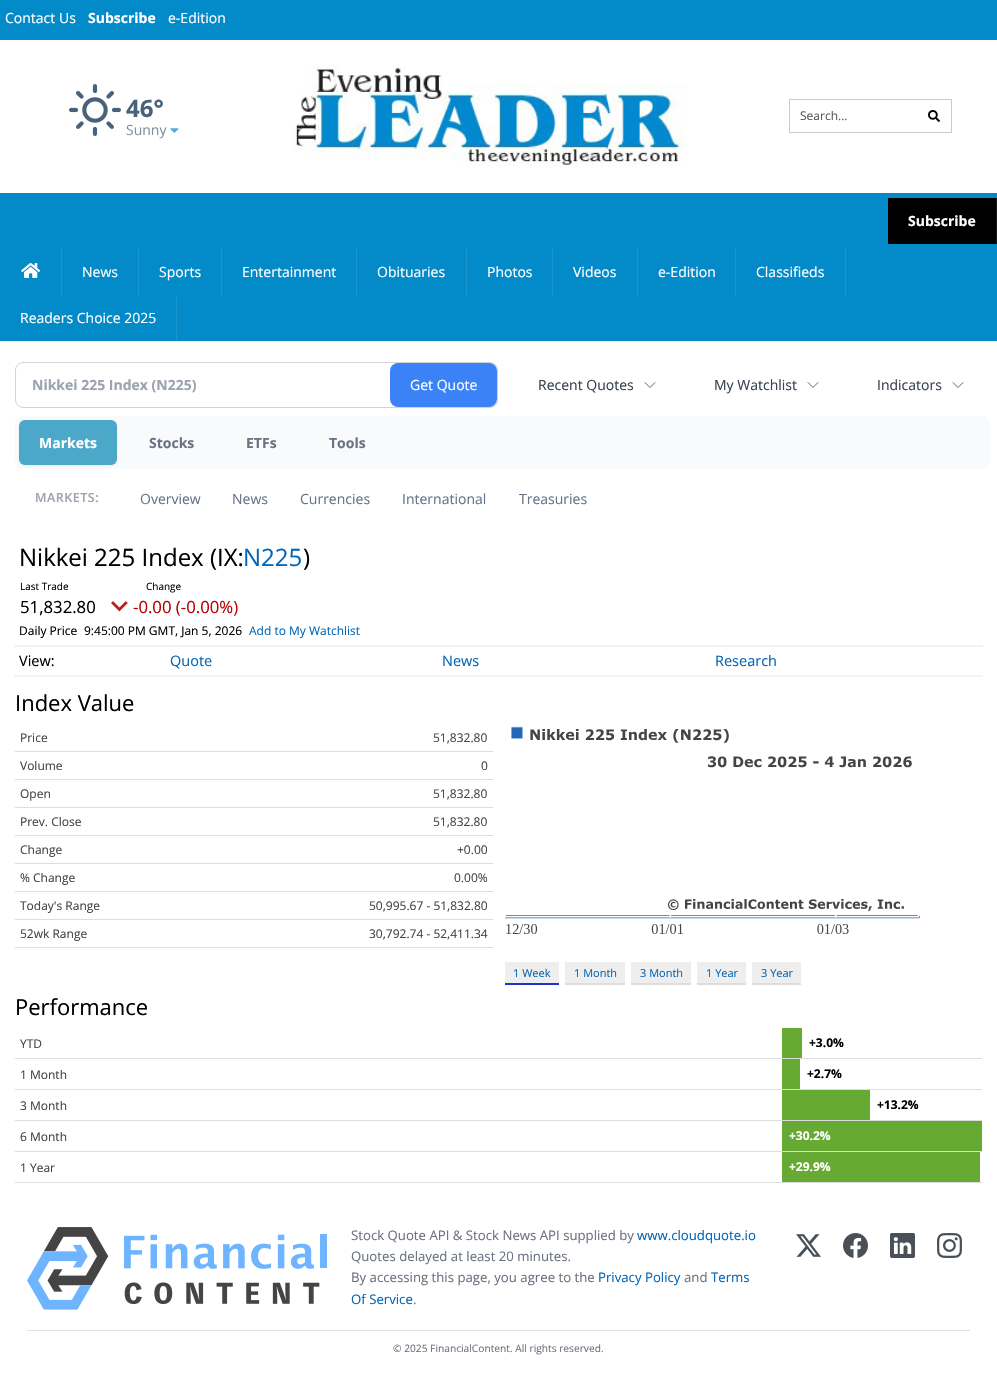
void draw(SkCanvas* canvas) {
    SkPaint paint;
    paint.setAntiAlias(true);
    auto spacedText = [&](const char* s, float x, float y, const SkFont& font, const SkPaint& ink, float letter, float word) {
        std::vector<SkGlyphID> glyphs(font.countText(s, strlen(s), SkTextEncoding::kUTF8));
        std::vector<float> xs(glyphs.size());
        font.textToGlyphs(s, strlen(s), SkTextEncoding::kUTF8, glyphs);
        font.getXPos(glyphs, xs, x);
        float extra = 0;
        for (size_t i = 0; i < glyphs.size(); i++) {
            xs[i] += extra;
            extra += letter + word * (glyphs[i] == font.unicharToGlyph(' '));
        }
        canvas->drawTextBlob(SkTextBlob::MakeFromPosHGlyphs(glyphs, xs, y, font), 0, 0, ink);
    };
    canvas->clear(0xFF038BC9);
    SkFont font1(fontMgr->matchFamilyStyle("Open Sans", SkFontStyle::Normal()), 14);
    font1.setSubpixel(true);
    paint.setColor(0xFFFFFFFF);
    canvas->drawString("Contact Us", 5, 23, font1, paint);
    SkFont font2(fontMgr->matchFamilyStyle("Open Sans", SkFontStyle::Bold()), 14);
    font2.setSubpixel(true);
    canvas->drawString("Subscribe", 88, 23, font2, paint);
    canvas->drawString("e-Edition", 168, 23, font1, paint);
    canvas->drawRect(SkRect::MakeXYWH(0, 40, 997, 153), paint);
    canvas->drawImageRect(SkImages::DeferredFromEncodedData(SkData::MakeFromFileName("img1.png")), SkRect::MakeXYWH(69, 84, 52, 52), SkSamplingOptions());
    SkFont font3(fontMgr->matchFamilyStyle("Open Sans", SkFontStyle::Bold()), 24);
    font3.setSubpixel(true);
    paint.setColor(0xFF49627B);
    canvas->drawString("46°", 126, 117, font3, paint);
    paint.setColor(0xFF8091A3);
    canvas->drawString("Sunny", 126, 135, font1, paint);
    canvas->drawImageRect(SkImages::DeferredFromEncodedData(SkData::MakeFromFileName("img2.png")), SkRect::MakeXYWH(170, 128, 9, 5), SkSamplingOptions());
    canvas->drawImageRect(SkImages::DeferredFromEncodedData(SkData::MakeFromFileName("img3.png")), SkRect::MakeXYWH(292, 66, 395, 101), SkSamplingOptions());
    paint.setStyle(SkPaint::kStroke_Style);
    paint.setStrokeWidth(1);
    paint.setColor(0xFFCCCCCC);
    canvas->drawRect(SkRect::MakeXYWH(789.5f, 99.5f, 162, 33), paint);
    SkFont font4(fontMgr->matchFamilyStyle("Open Sans", SkFontStyle::Normal()), 12);
    font4.setSubpixel(true);
    paint.setStyle(SkPaint::kFill_Style);
    paint.setColor(0xFF595959);
    canvas->drawString("Search...", 800, 120, font4, paint);
    canvas->drawImageRect(SkImages::DeferredFromEncodedData(SkData::MakeFromFileName("img4.png")), SkRect::MakeXYWH(928, 110, 12, 12), SkSamplingOptions());
    paint.setColor(0xFF000000);
    canvas->drawRect(SkRect::MakeXYWH(888, 198, 108, 46), paint);
    paint.setColor(0xFF1A1A1A);
    canvas->drawRect(SkRect::MakeXYWH(996, 198, 1, 46), paint);
    paint.setColor(0xFFFFFFFF);
    canvas->drawString("Subscribe", 908, 226, font2, paint);
    paint.setColor(0xFF1C97CE);
    canvas->drawRect(SkRect::MakeXYWH(61, 249, 1, 46), paint);
    canvas->drawImageRect(SkImages::DeferredFromEncodedData(SkData::MakeFromFileName("img5.png")), SkRect::MakeXYWH(21, 263, 20, 15), SkSamplingOptions());
    canvas->drawRect(SkRect::MakeXYWH(138, 249, 1, 46), paint);
    paint.setColor(0xFFFFFFFF);
    canvas->drawString("News", 82, 277, font1, paint);
    paint.setColor(0xFF1C97CE);
    canvas->drawRect(SkRect::MakeXYWH(221, 249, 1, 46), paint);
    paint.setColor(0xFFFFFFFF);
    canvas->drawString("Sports", 159, 277, font1, paint);
    paint.setColor(0xFF1C97CE);
    canvas->drawRect(SkRect::MakeXYWH(356, 249, 1, 46), paint);
    paint.setColor(0xFFFFFFFF);
    canvas->drawString("Entertainment", 242, 277, font1, paint);
    paint.setColor(0xFF1C97CE);
    canvas->drawRect(SkRect::MakeXYWH(466, 249, 1, 46), paint);
    paint.setColor(0xFFFFFFFF);
    canvas->drawString("Obituaries", 377, 277, font1, paint);
    paint.setColor(0xFF1C97CE);
    canvas->drawRect(SkRect::MakeXYWH(552, 249, 1, 46), paint);
    paint.setColor(0xFFFFFFFF);
    canvas->drawString("Photos", 487, 277, font1, paint);
    paint.setColor(0xFF1C97CE);
    canvas->drawRect(SkRect::MakeXYWH(637, 249, 1, 46), paint);
    paint.setColor(0xFFFFFFFF);
    canvas->drawString("Videos", 573, 277, font1, paint);
    paint.setColor(0xFF1C97CE);
    canvas->drawRect(SkRect::MakeXYWH(735, 249, 1, 46), paint);
    paint.setColor(0xFFFFFFFF);
    canvas->drawString("e-Edition", 658, 277, font1, paint);
    paint.setColor(0xFF1C97CE);
    canvas->drawRect(SkRect::MakeXYWH(845, 249, 1, 46), paint);
    paint.setColor(0xFFFFFFFF);
    canvas->drawString("Classifieds", 756, 277, font1, paint);
    paint.setColor(0xFF1C97CE);
    canvas->drawRect(SkRect::MakeXYWH(176, 295, 1, 46), paint);
    paint.setColor(0xFFFFFFFF);
    canvas->drawString("Readers Choice 2025", 20, 323, font1, paint);
    canvas->drawRect(SkRect::MakeXYWH(0, 341, 997, 1035), paint);
    paint.setStyle(SkPaint::kStroke_Style);
    paint.setColor(0xFFD1D5DB);
    canvas->drawRoundRect(SkRect::MakeXYWH(15.5f, 362.5f, 482, 45), 7.5f, 7.5f, paint);
    paint.setStyle(SkPaint::kFill_Style);
    paint.setColor(0xFF9CA3AF);
    canvas->drawString("Nikkei 225 Index (N225)", 32, 390, font2, paint);
    paint.setColor(0xFF3B82F6);
    canvas->drawRoundRect(SkRect::MakeXYWH(390, 363, 107, 44), 8, 8, paint);
    paint.setColor(0xFFFFFFFF);
    canvas->drawString("Get Quote", 410, 390, font1, paint);
    paint.setColor(0xFF374151);
    canvas->drawString("Recent Quotes", 538, 390, font1, paint);
    paint.setStyle(SkPaint::kStroke_Style);
    paint.setStrokeCap(SkPaint::kRound_Cap);
    paint.setStrokeJoin(SkPaint::kRound_Join);
    paint.setColor(0xFF666666);
    canvas->drawPath(SkPathBuilder().moveTo(655, 382.5f).lineTo(650, 387.5f).lineTo(645, 382.5f).detach(), paint);
    paint.setStyle(SkPaint::kFill_Style);
    paint.setColor(0xFF374151);
    canvas->drawString("My Watchlist", 714, 390, font1, paint);
    paint.setStyle(SkPaint::kStroke_Style);
    paint.setColor(0xFF666666);
    canvas->drawPath(SkPathBuilder().moveTo(818, 382.5f).lineTo(813, 387.5f).lineTo(808, 382.5f).detach(), paint);
    paint.setStyle(SkPaint::kFill_Style);
    paint.setColor(0xFF374151);
    canvas->drawString("Indicators", 877, 390, font1, paint);
    paint.setStyle(SkPaint::kStroke_Style);
    paint.setColor(0xFF666666);
    canvas->drawPath(SkPathBuilder().moveTo(963, 382.5f).lineTo(958, 387.5f).lineTo(953, 382.5f).detach(), paint);
    paint.setStyle(SkPaint::kFill_Style);
    paint.setColor(0xFFF8FAFC);
    canvas->drawRoundRect(SkRect::MakeXYWH(15, 416, 975, 53), 8, 8, paint);
    paint.setColor(0x0D000000);
    paint.setMaskFilter(SkMaskFilter::MakeBlur(kNormal_SkBlurStyle, 1));
    canvas->drawRoundRect(SkRect::MakeXYWH(19, 421, 98, 45), 6, 6, paint);
    paint.setMaskFilter(nullptr);
    paint.setColor(0xFF4CA8C8);
    canvas->drawRoundRect(SkRect::MakeXYWH(19, 420, 98, 45), 6, 6, paint);
    paint.setColor(0xFFFFFFFF);
    canvas->drawString("Markets", 39, 448, font2, paint);
    paint.setColor(0xFF6B7280);
    canvas->drawString("Stocks", 149, 448, font2, paint);
    canvas->drawString("ETFs", 246, 448, font2, paint);
    canvas->drawString("Tools", 329, 448, font2, paint);
    SkFont font5(fontMgr->matchFamilyStyle("Open Sans", SkFontStyle(600, SkFontStyle::kNormal_Width, SkFontStyle::kUpright_Slant)), 12.5f);
    font5.setSubpixel(true);
    paint.setColor(0xFF9CA3AF);
    spacedText("MARKETS:", 35, 502, font5, paint, 0.5f, 0);
    paint.setColor(0xFF64748B);
    canvas->drawString("Overview", 140, 504, font1, paint);
    canvas->drawString("News", 232, 504, font1, paint);
    canvas->drawString("Currencies", 300, 504, font1, paint);
    canvas->drawString("International", 402, 504, font1, paint);
    canvas->drawString("Treasuries", 519, 504, font1, paint);
    SkFont font6(fontMgr->matchFamilyStyle("Open Sans", SkFontStyle::Normal()), 24);
    font6.setSubpixel(true);
    paint.setColor(0xFF000000);
    canvas->drawString("Nikkei 225 Index (IX:", 19, 566, font6, paint);
    paint.setColor(0xFF0466B6);
    canvas->drawString("N225", 243, 566, font6, paint);
    paint.setColor(0xFF000000);
    canvas->drawString(")", 303, 566, font6, paint);
    SkFont font7(fontMgr->matchFamilyStyle("Open Sans", SkFontStyle::Normal()), 10);
    font7.setSubpixel(true);
    canvas->drawString("Last Trade", 20, 590, font7, paint);
    SkFont font8(fontMgr->matchFamilyStyle("Open Sans", SkFontStyle::Normal()), 16.75f);
    font8.setSubpixel(true);
    canvas->drawString("51,832.80", 20, 613, font8, paint);
    canvas->drawString("Change", 146, 590, font7, paint);
    canvas->drawImageRect(SkImages::DeferredFromEncodedData(SkData::MakeFromFileName("img6.png")), SkRect::MakeXYWH(111, 601, 17, 11), SkSamplingOptions());
    paint.setColor(0xFFB50000);
    canvas->drawString("-0.00 (-0.00%)", 133, 613, font8, paint);
    paint.setColor(0xFF000000);
    canvas->drawString("Daily Price", 19, 635, font4, paint);
    canvas->drawString("9:45:00 PM GMT, Jan 5, 2026", 84, 635, font4, paint);
    paint.setColor(0xFF0466B6);
    canvas->drawString("Add to My Watchlist", 249, 635, font4, paint);
    paint.setColor(0xFFF3F3F3);
    canvas->drawRect(SkRect::MakeXYWH(14, 645, 969, 2), paint);
    canvas->drawRect(SkRect::MakeXYWH(14, 675, 969, 2), paint);
    SkFont font9(fontMgr->matchFamilyStyle("Open Sans", SkFontStyle::Normal()), 14.5f);
    font9.setSubpixel(true);
    paint.setColor(0xFF000000);
    canvas->drawString("View:", 19, 666, font9, paint);
    paint.setColor(0xFF0466B6);
    canvas->drawString("Quote", 170, 666, font9, paint);
    canvas->drawString("News", 442, 666, font9, paint);
    canvas->drawString("Research", 715, 666, font9, paint);
    SkFont font10(fontMgr->matchFamilyStyle("Open Sans", SkFontStyle::Normal()), 22);
    font10.setSubpixel(true);
    paint.setColor(0xFF000000);
    canvas->drawString("Index Value", 15, 711, font10, paint);
    paint.setColor(0xFFDDDDDD);
    canvas->drawRect(SkRect::MakeXYWH(15, 751, 478, 1), paint);
    paint.setColor(0xFF444444);
    canvas->drawString("Price", 20, 742, font4, paint);
    canvas->drawString("51,832.80", 433, 742, font4, paint);
    paint.setColor(0xFFDDDDDD);
    canvas->drawRect(SkRect::MakeXYWH(15, 779, 478, 1), paint);
    paint.setColor(0xFF444444);
    canvas->drawString("Volume", 20, 770, font4, paint);
    canvas->drawString("0", 481, 770, font4, paint);
    paint.setColor(0xFFDDDDDD);
    canvas->drawRect(SkRect::MakeXYWH(15, 807, 478, 1), paint);
    paint.setColor(0xFF444444);
    canvas->drawString("Open", 20, 798, font4, paint);
    canvas->drawString("51,832.80", 433, 798, font4, paint);
    paint.setColor(0xFFDDDDDD);
    canvas->drawRect(SkRect::MakeXYWH(15, 835, 478, 1), paint);
    paint.setColor(0xFF444444);
    canvas->drawString("Prev. Close", 20, 826, font4, paint);
    canvas->drawString("51,832.80", 433, 826, font4, paint);
    paint.setColor(0xFFDDDDDD);
    canvas->drawRect(SkRect::MakeXYWH(15, 863, 478, 1), paint);
    paint.setColor(0xFF444444);
    canvas->drawString("Change", 20, 854, font4, paint);
    canvas->drawString("+0.00", 457, 854, font4, paint);
    paint.setColor(0xFFDDDDDD);
    canvas->drawRect(SkRect::MakeXYWH(15, 891, 478, 1), paint);
    paint.setColor(0xFF444444);
    canvas->drawString("% Change", 20, 882, font4, paint);
    canvas->drawString("0.00%", 454, 882, font4, paint);
    paint.setColor(0xFFDDDDDD);
    canvas->drawRect(SkRect::MakeXYWH(15, 919, 478, 1), paint);
    paint.setColor(0xFF444444);
    canvas->drawString("Today's Range", 20, 910, font4, paint);
    canvas->drawString("50,995.67 - 51,832.80", 369, 910, font4, paint);
    paint.setColor(0xFFDDDDDD);
    canvas->drawRect(SkRect::MakeXYWH(15, 947, 478, 1), paint);
    paint.setColor(0xFF444444);
    canvas->drawString("52wk Range", 20, 938, font4, paint);
    canvas->drawString("30,792.74 - 52,411.34", 369, 938, font4, paint);
    canvas->drawImageRect(SkImages::DeferredFromEncodedData(SkData::MakeFromFileName("img7.png")), SkRect::MakeXYWH(505, 726, 415, 208), SkSamplingOptions());
    paint.setColor(0xFFEEEEEE);
    canvas->drawRect(SkRect::MakeXYWH(505, 962, 54, 21), paint);
    paint.setColor(0xFF2233CC);
    canvas->drawRect(SkRect::MakeXYWH(505, 983, 54, 2), paint);
    SkFont font11(fontMgr->matchFamilyStyle("Open Sans", SkFontStyle::Normal()), 11);
    font11.setSubpixel(true);
    paint.setColor(0xFF0466B6);
    canvas->drawString("1 Week", 513, 977, font11, paint);
    paint.setColor(0xFFEEEEEE);
    canvas->drawRect(SkRect::MakeXYWH(565, 962, 60, 21), paint);
    paint.setColor(0xFFDDDDDD);
    canvas->drawRect(SkRect::MakeXYWH(565, 983, 60, 2), paint);
    paint.setColor(0xFF0466B6);
    canvas->drawString("1 Month", 574, 977, font11, paint);
    paint.setColor(0xFFEEEEEE);
    canvas->drawRect(SkRect::MakeXYWH(631, 962, 60, 21), paint);
    paint.setColor(0xFFDDDDDD);
    canvas->drawRect(SkRect::MakeXYWH(631, 983, 60, 2), paint);
    paint.setColor(0xFF0466B6);
    canvas->drawString("3 Month", 640, 977, font11, paint);
    paint.setColor(0xFFEEEEEE);
    canvas->drawRect(SkRect::MakeXYWH(697, 962, 49, 21), paint);
    paint.setColor(0xFFDDDDDD);
    canvas->drawRect(SkRect::MakeXYWH(697, 983, 49, 2), paint);
    paint.setColor(0xFF0466B6);
    canvas->drawString("1 Year", 706, 977, font11, paint);
    paint.setColor(0xFFEEEEEE);
    canvas->drawRect(SkRect::MakeXYWH(752, 962, 49, 21), paint);
    paint.setColor(0xFFDDDDDD);
    canvas->drawRect(SkRect::MakeXYWH(752, 983, 49, 2), paint);
    paint.setColor(0xFF0466B6);
    canvas->drawString("3 Year", 761, 977, font11, paint);
    paint.setColor(0xFF000000);
    canvas->drawString("Performance", 15, 1015, font10, paint);
    paint.setColor(0xFFDDDDDD);
    canvas->drawRect(SkRect::MakeXYWH(15, 1058, 967, 1), paint);
    paint.setColor(0xFF444444);
    canvas->drawString("YTD", 20, 1048, font4, paint);
    paint.setColor(0xFF66AA33);
    canvas->drawRect(SkRect::MakeXYWH(782, 1028, 20, 30), paint);
    SkFont font12(fontMgr->matchFamilyStyle("Open Sans", SkFontStyle::Bold()), 12);
    font12.setSubpixel(true);
    paint.setColor(0xFF000000);
    canvas->drawString("+3.0%", 809, 1047, font12, paint);
    paint.setColor(0xFFDDDDDD);
    canvas->drawRect(SkRect::MakeXYWH(15, 1089, 967, 1), paint);
    paint.setColor(0xFF444444);
    canvas->drawString("1 Month", 20, 1079, font4, paint);
    paint.setColor(0xFF66AA33);
    canvas->drawRect(SkRect::MakeXYWH(782, 1059, 18, 30), paint);
    paint.setColor(0xFF000000);
    canvas->drawString("+2.7%", 807, 1078, font12, paint);
    paint.setColor(0xFFDDDDDD);
    canvas->drawRect(SkRect::MakeXYWH(15, 1120, 967, 1), paint);
    paint.setColor(0xFF444444);
    canvas->drawString("3 Month", 20, 1110, font4, paint);
    paint.setColor(0xFF66AA33);
    canvas->drawRect(SkRect::MakeXYWH(782, 1090, 88, 30), paint);
    paint.setColor(0xFF000000);
    canvas->drawString("+13.2%", 877, 1109, font12, paint);
    paint.setColor(0xFFDDDDDD);
    canvas->drawRect(SkRect::MakeXYWH(15, 1151, 967, 1), paint);
    paint.setColor(0xFF444444);
    canvas->drawString("6 Month", 20, 1141, font4, paint);
    paint.setColor(0xFF66AA33);
    canvas->drawRect(SkRect::MakeXYWH(782, 1121, 200, 30), paint);
    paint.setColor(0xFFFFFFFF);
    canvas->drawString("+30.2%", 789, 1140, font12, paint);
    paint.setColor(0xFFDDDDDD);
    canvas->drawRect(SkRect::MakeXYWH(15, 1182, 967, 1), paint);
    paint.setColor(0xFF444444);
    canvas->drawString("1 Year", 20, 1172, font4, paint);
    paint.setColor(0xFF66AA33);
    canvas->drawRect(SkRect::MakeXYWH(782, 1152, 198, 30), paint);
    paint.setColor(0xFFFFFFFF);
    canvas->drawString("+29.9%", 789, 1171, font12, paint);
    canvas->drawImageRect(SkImages::DeferredFromEncodedData(SkData::MakeFromFileName("img8.png")), SkRect::MakeXYWH(27, 1227, 300, 83), SkSamplingOptions());
    SkFont font13(fontMgr->matchFamilyStyle("Open Sans", SkFontStyle::Normal()), 13.2f);
    font13.setSubpixel(true);
    paint.setColor(0xFF6B7280);
    canvas->drawString("Stock Quote API & Stock News API supplied by", 351, 1240, font13, paint);
    paint.setColor(0xFF0466B6);
    canvas->drawString("www.cloudquote.io", 637, 1240, font13, paint);
    paint.setColor(0xFF6B7280);
    canvas->drawString("Quotes delayed at least 20 minutes.", 351, 1261, font13, paint);
    canvas->drawString("By accessing this page, you agree to the", 351, 1282, font13, paint);
    paint.setColor(0xFF0466B6);
    canvas->drawString("Privacy Policy", 598, 1282, font13, paint);
    paint.setColor(0xFF6B7280);
    canvas->drawString("and", 684, 1282, font13, paint);
    paint.setColor(0xFF0466B6);
    canvas->drawString("Terms", 711, 1282, font13, paint);
    canvas->drawString("Of Service", 351, 1304, font13, paint);
    paint.setColor(0xFF6B7280);
    canvas->drawString(".", 413, 1304, font13, paint);
    canvas->drawImageRect(SkImages::DeferredFromEncodedData(SkData::MakeFromFileName("img9.png")), SkRect::MakeXYWH(796, 1234, 25, 23), SkSamplingOptions());
    canvas->drawImageRect(SkImages::DeferredFromEncodedData(SkData::MakeFromFileName("img10.png")), SkRect::MakeXYWH(843, 1233, 25, 25), SkSamplingOptions());
    canvas->drawImageRect(SkImages::DeferredFromEncodedData(SkData::MakeFromFileName("img11.png")), SkRect::MakeXYWH(890, 1233, 25, 25), SkSamplingOptions());
    canvas->drawImageRect(SkImages::DeferredFromEncodedData(SkData::MakeFromFileName("img12.png")), SkRect::MakeXYWH(937, 1233, 25, 25), SkSamplingOptions());
    paint.setColor(0xFFDEE2E6);
    canvas->drawRect(SkRect::MakeXYWH(27, 1330, 943, 1), paint);
    SkFont font14(fontMgr->matchFamilyStyle("Open Sans", SkFontStyle::Normal()), 10.2f);
    font14.setSubpixel(true);
    paint.setColor(0xFF6B7280);
    canvas->drawString("© 2025 FinancialContent. All rights reserved.", 393, 1352, font14, paint);
}
